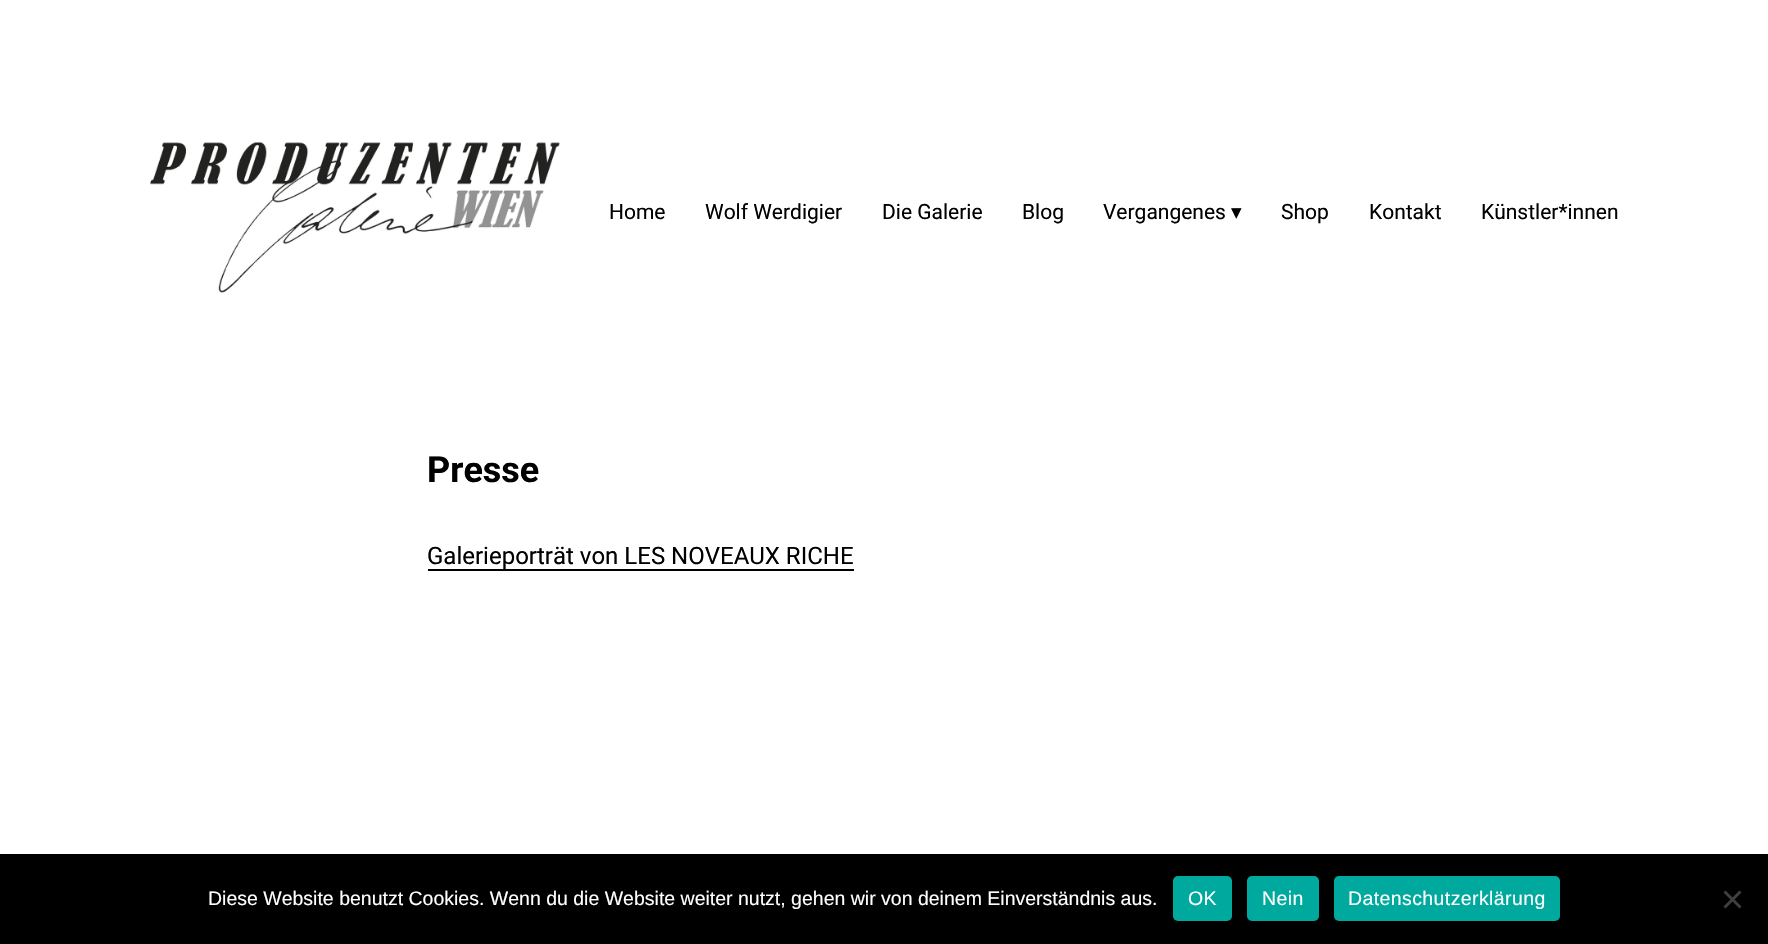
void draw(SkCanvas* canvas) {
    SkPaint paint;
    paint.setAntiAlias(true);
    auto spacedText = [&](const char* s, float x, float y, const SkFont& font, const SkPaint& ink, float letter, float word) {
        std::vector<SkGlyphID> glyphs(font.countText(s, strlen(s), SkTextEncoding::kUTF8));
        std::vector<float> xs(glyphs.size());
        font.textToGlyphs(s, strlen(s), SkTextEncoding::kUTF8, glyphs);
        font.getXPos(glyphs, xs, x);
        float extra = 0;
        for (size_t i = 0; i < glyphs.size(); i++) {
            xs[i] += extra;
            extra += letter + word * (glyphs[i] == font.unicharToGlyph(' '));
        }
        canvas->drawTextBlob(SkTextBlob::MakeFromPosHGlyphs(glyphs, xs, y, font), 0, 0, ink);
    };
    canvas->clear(0xFFFFFFFF);
    canvas->drawImageRect(SkImages::DeferredFromEncodedData(SkData::MakeFromFileName("img1.png")), SkRect::MakeXYWH(150, 142, 410, 151), SkSamplingOptions());
    SkFont font1(fontMgr->matchFamilyStyle("Roboto", SkFontStyle::Normal()), 21);
    font1.setSubpixel(true);
    paint.setColor(0xFF000000);
    canvas->drawString("Home", 609, 219, font1, paint);
    canvas->drawString("Wolf Werdigier", 705, 219, font1, paint);
    canvas->drawString("Die Galerie", 882, 219, font1, paint);
    canvas->drawString("Blog", 1022, 219, font1, paint);
    canvas->drawString("Vergangenes", 1103, 219, font1, paint);
    SkFont font2(fontMgr->matchFamilyStyle("DejaVu Sans", SkFontStyle::Normal()), 21);
    font2.setSubpixel(true);
    canvas->drawString("▾", 1231, 219, font2, paint);
    canvas->drawString("Shop", 1281, 219, font1, paint);
    canvas->drawString("Kontakt", 1369, 219, font1, paint);
    canvas->drawString("Künstler*innen", 1481, 219, font1, paint);
    SkFont font3(fontMgr->matchFamilyStyle("Roboto", SkFontStyle::Bold()), 36);
    font3.setSubpixel(true);
    canvas->drawString("Presse", 427, 482, font3, paint);
    SkFont font4(fontMgr->matchFamilyStyle("Roboto", SkFontStyle::Normal()), 24);
    font4.setSubpixel(true);
    canvas->drawString("Galerieporträt von LES NOVEAUX RICHE", 427, 564, font4, paint);
    canvas->drawRect(SkRect::MakeXYWH(428, 569, 426, 2), paint);
    canvas->drawRect(SkRect::MakeXYWH(0, 854, 1768, 90), paint);
    SkFont font5(fontMgr->matchFamilyStyle("Liberation Sans", SkFontStyle::Normal()), 19.5f);
    font5.setSubpixel(true);
    paint.setColor(0xFFFFFFFF);
    canvas->drawString("Diese Website benutzt Cookies. Wenn du die Website weiter nutzt, gehen wir von deinem Einverständnis aus.", 208, 905, font5, paint);
    paint.setColor(0xFF00A99D);
    canvas->drawRoundRect(SkRect::MakeXYWH(1173, 876, 59, 45), 5, 5, paint);
    paint.setColor(0xFFFFFFFF);
    spacedText("OK", 1188, 905, font5, paint, 0.4f, 0);
    paint.setColor(0xFF00A99D);
    canvas->drawRoundRect(SkRect::MakeXYWH(1247, 876, 72, 45), 5, 5, paint);
    paint.setColor(0xFFFFFFFF);
    spacedText("Nein", 1262, 905, font5, paint, 0.4f, 0);
    paint.setColor(0xFF00A99D);
    canvas->drawRoundRect(SkRect::MakeXYWH(1334, 876, 226, 45), 5, 5, paint);
    paint.setColor(0xFFFFFFFF);
    spacedText("Datenschutzerklärung", 1348, 905, font5, paint, 0.4f, 0);
    paint.setColor(0xFF404040);
    canvas->drawPath(SkPathBuilder().moveTo(1739.5f, 890.5f).lineTo(1741.5f, 892.5f).lineTo(1725.5f, 908.5f).lineTo(1723.5f, 906.5f).close().detach(), paint);
    canvas->drawPath(SkPathBuilder().moveTo(1723.5f, 892.5f).lineTo(1725.5f, 890.5f).lineTo(1741.5f, 906.5f).lineTo(1739.5f, 908.5f).close().detach(), paint);
}
